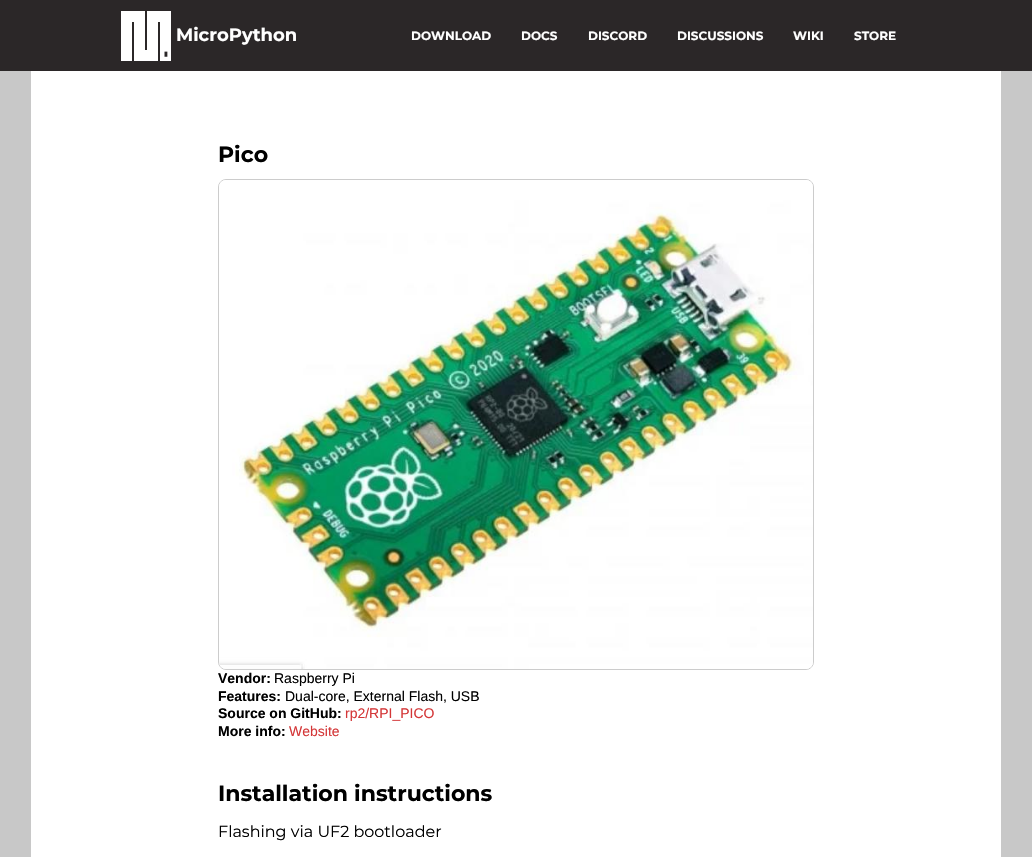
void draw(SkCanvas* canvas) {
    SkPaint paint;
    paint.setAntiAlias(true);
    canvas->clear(0xFFC8C8C8);
    paint.setColor(0xFF2B2728);
    canvas->drawRect(SkRect::MakeXYWH(0, 0, 1032, 71), paint);
    canvas->drawImageRect(SkImages::DeferredFromEncodedData(SkData::MakeFromFileName("img1.png")), SkRect::MakeXYWH(121, 11, 50, 50), SkSamplingOptions());
    SkFont font1(fontMgr->matchFamilyStyle("Montserrat", SkFontStyle::Bold()), 18);
    font1.setSubpixel(true);
    paint.setColor(0xFFFFFFFF);
    canvas->drawString("MicroPython", 176, 41, font1, paint);
    SkFont font2(fontMgr->matchFamilyStyle("Montserrat", SkFontStyle::Bold()), 12);
    font2.setSubpixel(true);
    canvas->drawString("DOWNLOAD", 411, 40, font2, paint);
    canvas->drawString("DOCS", 521, 40, font2, paint);
    canvas->drawString("DISCORD", 588, 40, font2, paint);
    canvas->drawString("DISCUSSIONS", 677, 40, font2, paint);
    canvas->drawString("WIKI", 793, 40, font2, paint);
    canvas->drawString("STORE", 854, 40, font2, paint);
    canvas->drawRect(SkRect::MakeXYWH(31, 71, 970, 786), paint);
    SkFont font3(fontMgr->matchFamilyStyle("Montserrat", SkFontStyle::Bold()), 22);
    font3.setSubpixel(true);
    paint.setColor(0xFF000000);
    canvas->drawString("Pico", 218, 162, font3, paint);
    paint.setStyle(SkPaint::kStroke_Style);
    paint.setStrokeWidth(1);
    paint.setColor(0xFFCCCCCC);
    canvas->drawRoundRect(SkRect::MakeXYWH(218.5f, 179.5f, 595, 490), 7.5f, 7.5f, paint);
    canvas->drawImageRect(SkImages::DeferredFromEncodedData(SkData::MakeFromFileName("img2.png")), SkRect::MakeXYWH(219, 180, 594, 489), SkSamplingOptions());
    SkFont font4(fontMgr->matchFamilyStyle("Liberation Sans", SkFontStyle::Bold()), 14);
    font4.setSubpixel(true);
    paint.setStyle(SkPaint::kFill_Style);
    paint.setColor(0xFF000000);
    canvas->drawString("Vendor:", 218, 683, font4, paint);
    SkFont font5(fontMgr->matchFamilyStyle("Liberation Sans", SkFontStyle::Normal()), 14);
    font5.setSubpixel(true);
    canvas->drawString("Raspberry Pi", 274, 683, font5, paint);
    canvas->drawString("Features:", 218, 701, font4, paint);
    canvas->drawString("Dual-core, External Flash, USB", 285, 701, font5, paint);
    canvas->drawString("Source on GitHub:", 218, 718, font4, paint);
    paint.setColor(0xFFD43738);
    canvas->drawString("rp2/RPI_PICO", 345, 718, font5, paint);
    paint.setColor(0xFF000000);
    canvas->drawString("More info:", 218, 736, font4, paint);
    paint.setColor(0xFFD43738);
    canvas->drawString("Website", 289, 736, font5, paint);
    paint.setColor(0xFF000000);
    canvas->drawString("Installation instructions", 218, 801, font3, paint);
    SkFont font6(fontMgr->matchFamilyStyle("Montserrat", SkFontStyle::Normal()), 16);
    font6.setSubpixel(true);
    canvas->drawString("Flashing via UF2 bootloader", 218, 837, font6, paint);
}
